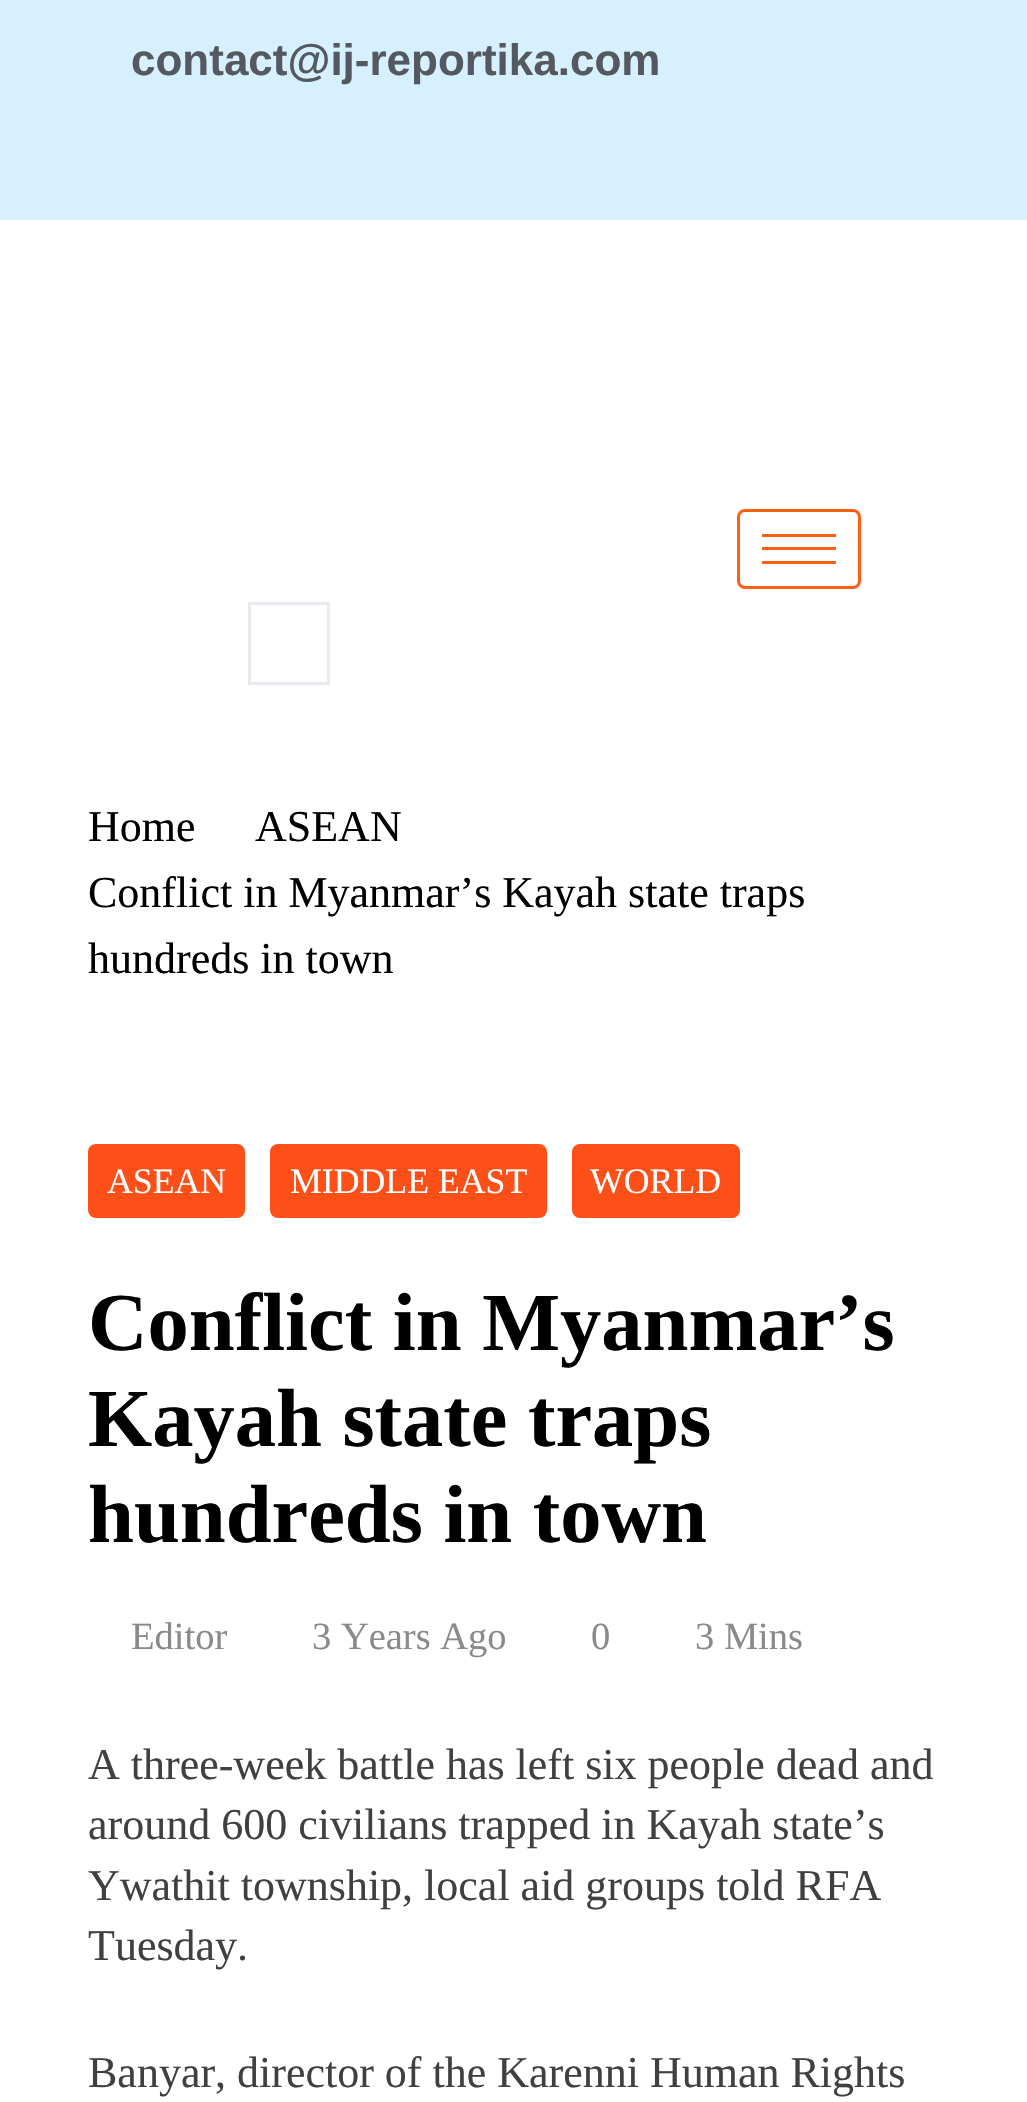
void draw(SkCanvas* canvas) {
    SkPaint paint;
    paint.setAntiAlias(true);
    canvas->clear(0xFFFFFFFF);
    paint.setColor(0xFFD6F0FF);
    canvas->drawRect(SkRect::MakeXYWH(0, 0, 1027, 220), paint);
    SkFont font1(fontMgr->matchFamilyStyle("Liberation Sans", SkFontStyle::Bold()), 44);
    font1.setSubpixel(true);
    paint.setColor(0xFF54595F);
    canvas->drawString("contact@ij-reportika.com", 131, 75, font1, paint);
    paint.setStyle(SkPaint::kStroke_Style);
    paint.setStrokeWidth(3);
    paint.setColor(0xFFFF5E13);
    canvas->drawRoundRect(SkRect::MakeXYWH(738.5f, 510.5f, 121, 77), 6.5f, 6.5f, paint);
    paint.setStyle(SkPaint::kFill_Style);
    canvas->drawRect(SkRect::MakeXYWH(762, 534, 74, 3), paint);
    canvas->drawRect(SkRect::MakeXYWH(762, 547, 74, 3), paint);
    canvas->drawRect(SkRect::MakeXYWH(762, 561, 74, 3), paint);
    paint.setStyle(SkPaint::kStroke_Style);
    paint.setColor(0xFFEAEBF1);
    canvas->drawRect(SkRect::MakeXYWH(249.5f, 603.5f, 79, 80), paint);
    SkFont font2(fontMgr->matchFamilyStyle("Liberation Serif", SkFontStyle::Normal()), 44);
    font2.setSubpixel(true);
    paint.setStyle(SkPaint::kFill_Style);
    paint.setColor(0xFF000000);
    canvas->drawString("Home", 88, 841, font2, paint);
    canvas->drawString("ASEAN", 255, 841, font2, paint);
    canvas->drawString("Conflict in Myanmar’s Kayah state traps", 88, 907, font2, paint);
    canvas->drawString("hundreds in town", 88, 973, font2, paint);
    paint.setColor(0xFFFD4F18);
    canvas->drawRoundRect(SkRect::MakeXYWH(88, 1144, 157, 74), 8, 8, paint);
    SkFont font3(fontMgr->matchFamilyStyle("Liberation Serif", SkFontStyle::Normal()), 35.75f);
    font3.setSubpixel(true);
    paint.setColor(0xFFFFFFFF);
    canvas->drawString("ASEAN", 107, 1193, font3, paint);
    paint.setColor(0xFFFD4F18);
    canvas->drawRoundRect(SkRect::MakeXYWH(270, 1144, 277, 74), 8, 8, paint);
    paint.setColor(0xFFFFFFFF);
    canvas->drawString("MIDDLE EAST", 290, 1193, font3, paint);
    paint.setColor(0xFFFD4F18);
    canvas->drawRoundRect(SkRect::MakeXYWH(572, 1144, 168, 74), 8, 8, paint);
    paint.setColor(0xFFFFFFFF);
    canvas->drawString("WORLD", 590, 1193, font3, paint);
    SkFont font4(fontMgr->matchFamilyStyle("Liberation Serif", SkFontStyle::Bold()), 82.5f);
    font4.setSubpixel(true);
    paint.setColor(0xFF000000);
    canvas->drawString("Conflict in Myanmar’s", 88, 1350, font4, paint);
    canvas->drawString("Kayah state traps", 88, 1446, font4, paint);
    canvas->drawString("hundreds in town", 88, 1542, font4, paint);
    SkFont font5(fontMgr->matchFamilyStyle("Liberation Serif", SkFontStyle::Normal()), 38.5f);
    font5.setSubpixel(true);
    paint.setColor(0xFF8A8A8C);
    canvas->drawString("Editor", 131, 1649, font5, paint);
    canvas->drawString("3 Years Ago", 312, 1649, font5, paint);
    canvas->drawString("0", 591, 1649, font5, paint);
    canvas->drawString("3 Mins", 695, 1649, font5, paint);
    paint.setColor(0xFF404040);
    canvas->drawString("A three-week battle has left six people dead and", 88, 1779, font2, paint);
    canvas->drawString("around 600 civilians trapped in Kayah state’s", 88, 1839, font2, paint);
    canvas->drawString("Ywathit township, local aid groups told RFA", 88, 1900, font2, paint);
    canvas->drawString("Tuesday.", 88, 1960, font2, paint);
    canvas->drawString("Banyar, director of the Karenni Human Rights", 88, 2087, font2, paint);
}
